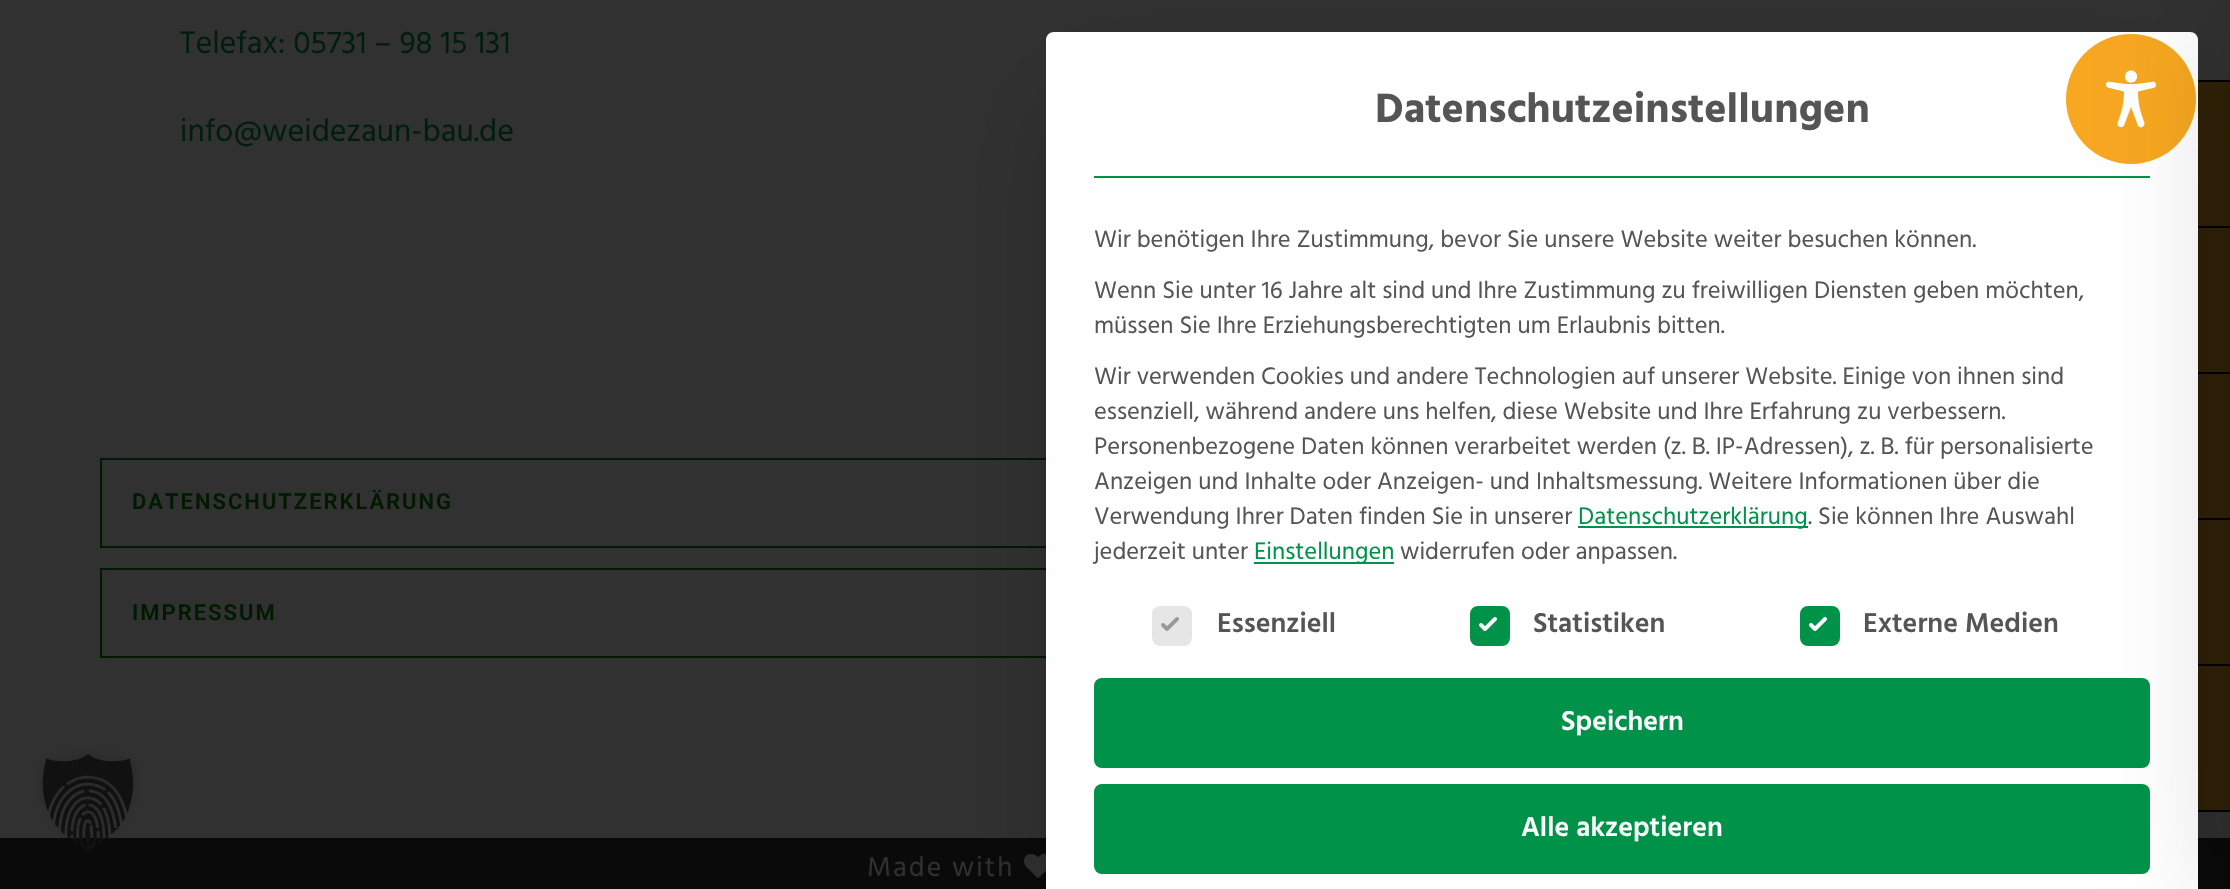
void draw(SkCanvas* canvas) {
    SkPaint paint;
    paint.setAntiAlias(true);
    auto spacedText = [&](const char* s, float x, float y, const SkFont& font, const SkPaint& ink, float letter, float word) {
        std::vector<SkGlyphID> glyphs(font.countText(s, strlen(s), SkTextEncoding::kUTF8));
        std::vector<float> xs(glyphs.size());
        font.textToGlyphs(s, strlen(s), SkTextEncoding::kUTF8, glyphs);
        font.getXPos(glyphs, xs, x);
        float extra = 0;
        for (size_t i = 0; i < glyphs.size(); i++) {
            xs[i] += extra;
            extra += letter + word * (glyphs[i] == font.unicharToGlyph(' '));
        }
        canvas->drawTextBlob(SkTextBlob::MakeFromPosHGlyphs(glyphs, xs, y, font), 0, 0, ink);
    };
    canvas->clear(0xFF313131);
    SkFont font1(fontMgr->matchFamilyStyle("Hind", SkFontStyle::Normal()), 32);
    font1.setSubpixel(true);
    paint.setColor(0xFF001D0E);
    canvas->drawString("Telefax: 05731 – 98 15 131", 180, 53, font1, paint);
    canvas->drawString("info@weidezaun-bau.de", 180, 141, font1, paint);
    paint.setStyle(SkPaint::kStroke_Style);
    paint.setStrokeWidth(2);
    paint.setColor(0xFF001A00);
    canvas->drawRect(SkRect::MakeXYWH(101, 459, 2028, 88), paint);
    SkFont font2(fontMgr->matchFamilyStyle("Roboto", SkFontStyle(600, SkFontStyle::kNormal_Width, SkFontStyle::kUpright_Slant)), 22);
    font2.setSubpixel(true);
    paint.setStyle(SkPaint::kFill_Style);
    spacedText("DATENSCHUTZERKLÄRUNG", 132, 509, font2, paint, 2, 0);
    paint.setStyle(SkPaint::kStroke_Style);
    canvas->drawRect(SkRect::MakeXYWH(101, 569, 2028, 88), paint);
    paint.setStyle(SkPaint::kFill_Style);
    spacedText("IMPRESSUM", 132, 620, font2, paint, 2, 0);
    paint.setColor(0xFF0A0A0A);
    canvas->drawRect(SkRect::MakeXYWH(0, 838, 2230, 51), paint);
    SkFont font3(fontMgr->matchFamilyStyle("Hind", SkFontStyle::Normal()), 28);
    font3.setSubpixel(true);
    paint.setColor(0xFF303030);
    spacedText("Made with", 867, 876, font3, paint, 2, 0);
    canvas->drawImageRect(SkImages::DeferredFromEncodedData(SkData::MakeFromFileName("img1.png")), SkRect::MakeXYWH(1024, 854, 22, 24), SkSamplingOptions());
    paint.setColor(0xFF312106);
    canvas->drawRect(SkRect::MakeXYWH(2198, 82, 32, 144), paint);
    paint.setColor(0xFF000000);
    canvas->drawRect(SkRect::MakeXYWH(2198, 80, 32, 2), paint);
    paint.setColor(0xFF312106);
    canvas->drawRect(SkRect::MakeXYWH(2198, 228, 32, 144), paint);
    paint.setColor(0xFF000000);
    canvas->drawRect(SkRect::MakeXYWH(2198, 226, 32, 2), paint);
    paint.setColor(0xFF312106);
    canvas->drawRect(SkRect::MakeXYWH(2198, 374, 32, 144), paint);
    paint.setColor(0xFF000000);
    canvas->drawRect(SkRect::MakeXYWH(2198, 372, 32, 2), paint);
    paint.setColor(0xFF312106);
    canvas->drawRect(SkRect::MakeXYWH(2198, 520, 32, 144), paint);
    paint.setColor(0xFF000000);
    canvas->drawRect(SkRect::MakeXYWH(2198, 518, 32, 2), paint);
    paint.setColor(0xFF312106);
    canvas->drawRect(SkRect::MakeXYWH(2198, 666, 32, 144), paint);
    paint.setColor(0xFF000000);
    canvas->drawRect(SkRect::MakeXYWH(2198, 664, 32, 2), paint);
    canvas->drawRect(SkRect::MakeXYWH(2198, 810, 32, 2), paint);
    paint.setColor(0x40000000);
    paint.setMaskFilter(SkMaskFilter::MakeBlur(kNormal_SkBlurStyle, 50));
    canvas->drawRect(SkRect::MakeXYWH(1070, 106, 1104, 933), paint);
    paint.setMaskFilter(nullptr);
    paint.setColor(0xFFFFFFFF);
    canvas->drawPath(SkPathBuilder().moveTo(1054, 32).lineTo(2190, 32).cubicTo(2194.5f, 32, 2198, 35.5f, 2198, 40).lineTo(2198, 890).lineTo(1046, 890).lineTo(1046, 40).cubicTo(1046, 35.5f, 1049.5f, 32, 1054, 32).close().detach(), paint);
    paint.setColor(0xFF009248);
    canvas->drawRect(SkRect::MakeXYWH(1094, 176, 1056, 2), paint);
    canvas->drawRoundRect(SkRect::MakeXYWH(1094, 678, 1056, 90), 8, 8, paint);
    canvas->drawRoundRect(SkRect::MakeXYWH(1094, 784, 1056, 90), 8, 8, paint);
    paint.setColor(0xFFF7A720);
    canvas->drawCircle(2131, 99, 65, paint);
    canvas->drawImageRect(SkImages::DeferredFromEncodedData(SkData::MakeFromFileName("img5.png")), SkRect::MakeXYWH(2105, 70, 52, 58), SkSamplingOptions());
    paint.setColor(0x33000000);
    paint.setMaskFilter(SkMaskFilter::MakeBlur(kNormal_SkBlurStyle, 60));
    canvas->drawRect(SkRect::MakeXYWH(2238, 20, 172, 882), paint);
    paint.setMaskFilter(nullptr);
    canvas->drawImageRect(SkImages::DeferredFromEncodedData(SkData::MakeFromFileName("img2.png")), SkRect::MakeXYWH(34, 748, 108, 102), SkSamplingOptions());
    SkFont font4(fontMgr->matchFamilyStyle("Hind", SkFontStyle::Bold()), 42);
    font4.setSubpixel(true);
    paint.setColor(0xFF555555);
    canvas->drawString("Datenschutzeinstellungen", 1375, 122, font4, paint);
    SkFont font5(fontMgr->matchFamilyStyle("Hind", SkFontStyle::Normal()), 24.5f);
    font5.setSubpixel(true);
    canvas->drawString("Wir benötigen Ihre Zustimmung, bevor Sie unsere Website weiter besuchen können.", 1094, 247, font5, paint);
    canvas->drawString("Wenn Sie unter 16 Jahre alt sind und Ihre Zustimmung zu freiwilligen Diensten geben möchten,", 1094, 298, font5, paint);
    canvas->drawString("müssen Sie Ihre Erziehungsberechtigten um Erlaubnis bitten.", 1094, 333, font5, paint);
    canvas->drawString("Wir verwenden Cookies und andere Technologien auf unserer Website. Einige von ihnen sind", 1094, 384, font5, paint);
    canvas->drawString("essenziell, während andere uns helfen, diese Website und Ihre Erfahrung zu verbessern.", 1094, 419, font5, paint);
    canvas->drawString("Personenbezogene Daten können verarbeitet werden (z. B. IP-Adressen), z. B. für personalisierte", 1094, 454, font5, paint);
    canvas->drawString("Anzeigen und Inhalte oder Anzeigen- und Inhaltsmessung. Weitere Informationen über die", 1094, 489, font5, paint);
    canvas->drawString("Verwendung Ihrer Daten finden Sie in unserer", 1094, 524, font5, paint);
    paint.setColor(0xFF009248);
    canvas->drawRect(SkRect::MakeXYWH(1578, 526, 230, 2), paint);
    canvas->drawString("Datenschutzerklärung", 1578, 524, font5, paint);
    paint.setColor(0xFF555555);
    canvas->drawString(". Sie können Ihre Auswahl", 1808, 524, font5, paint);
    canvas->drawString("jederzeit unter", 1094, 559, font5, paint);
    paint.setColor(0xFF009248);
    canvas->drawRect(SkRect::MakeXYWH(1254, 562, 140, 2), paint);
    canvas->drawString("Einstellungen", 1254, 559, font5, paint);
    paint.setColor(0xFF555555);
    canvas->drawString("widerrufen oder anpassen.", 1400, 559, font5, paint);
    paint.setColor(0xFFE6E6E6);
    canvas->drawRoundRect(SkRect::MakeXYWH(1153, 607, 38, 38), 7, 7, paint);
    paint.setStyle(SkPaint::kStroke_Style);
    canvas->drawRoundRect(SkRect::MakeXYWH(1153, 607, 38, 38), 7, 7, paint);
    canvas->drawImageRect(SkImages::DeferredFromEncodedData(SkData::MakeFromFileName("img3.png")), SkRect::MakeXYWH(1161, 617, 18, 14), SkSamplingOptions());
    SkFont font6(fontMgr->matchFamilyStyle("Hind", SkFontStyle(600, SkFontStyle::kNormal_Width, SkFontStyle::kUpright_Slant)), 28);
    font6.setSubpixel(true);
    paint.setStyle(SkPaint::kFill_Style);
    paint.setColor(0xFF555555);
    canvas->drawString("Essenziell", 1217, 632, font6, paint);
    paint.setColor(0xFF009248);
    canvas->drawRoundRect(SkRect::MakeXYWH(1471, 607, 38, 38), 7, 7, paint);
    paint.setStyle(SkPaint::kStroke_Style);
    canvas->drawRoundRect(SkRect::MakeXYWH(1471, 607, 38, 38), 7, 7, paint);
    canvas->drawImageRect(SkImages::DeferredFromEncodedData(SkData::MakeFromFileName("img4.png")), SkRect::MakeXYWH(1479, 617, 18, 14), SkSamplingOptions());
    paint.setStyle(SkPaint::kFill_Style);
    paint.setColor(0xFF555555);
    canvas->drawString("Statistiken", 1533, 632, font6, paint);
    paint.setColor(0xFF009248);
    canvas->drawRoundRect(SkRect::MakeXYWH(1801, 607, 38, 38), 7, 7, paint);
    paint.setStyle(SkPaint::kStroke_Style);
    canvas->drawRoundRect(SkRect::MakeXYWH(1801, 607, 38, 38), 7, 7, paint);
    canvas->drawImageRect(SkImages::DeferredFromEncodedData(SkData::MakeFromFileName("img4.png")), SkRect::MakeXYWH(1809, 617, 18, 14), SkSamplingOptions());
    paint.setStyle(SkPaint::kFill_Style);
    paint.setColor(0xFF555555);
    canvas->drawString("Externe Medien", 1863, 632, font6, paint);
    paint.setColor(0xFFFFFFFF);
    canvas->drawString("Speichern", 1561, 730, font6, paint);
    canvas->drawString("Alle akzeptieren", 1521, 836, font6, paint);
}
